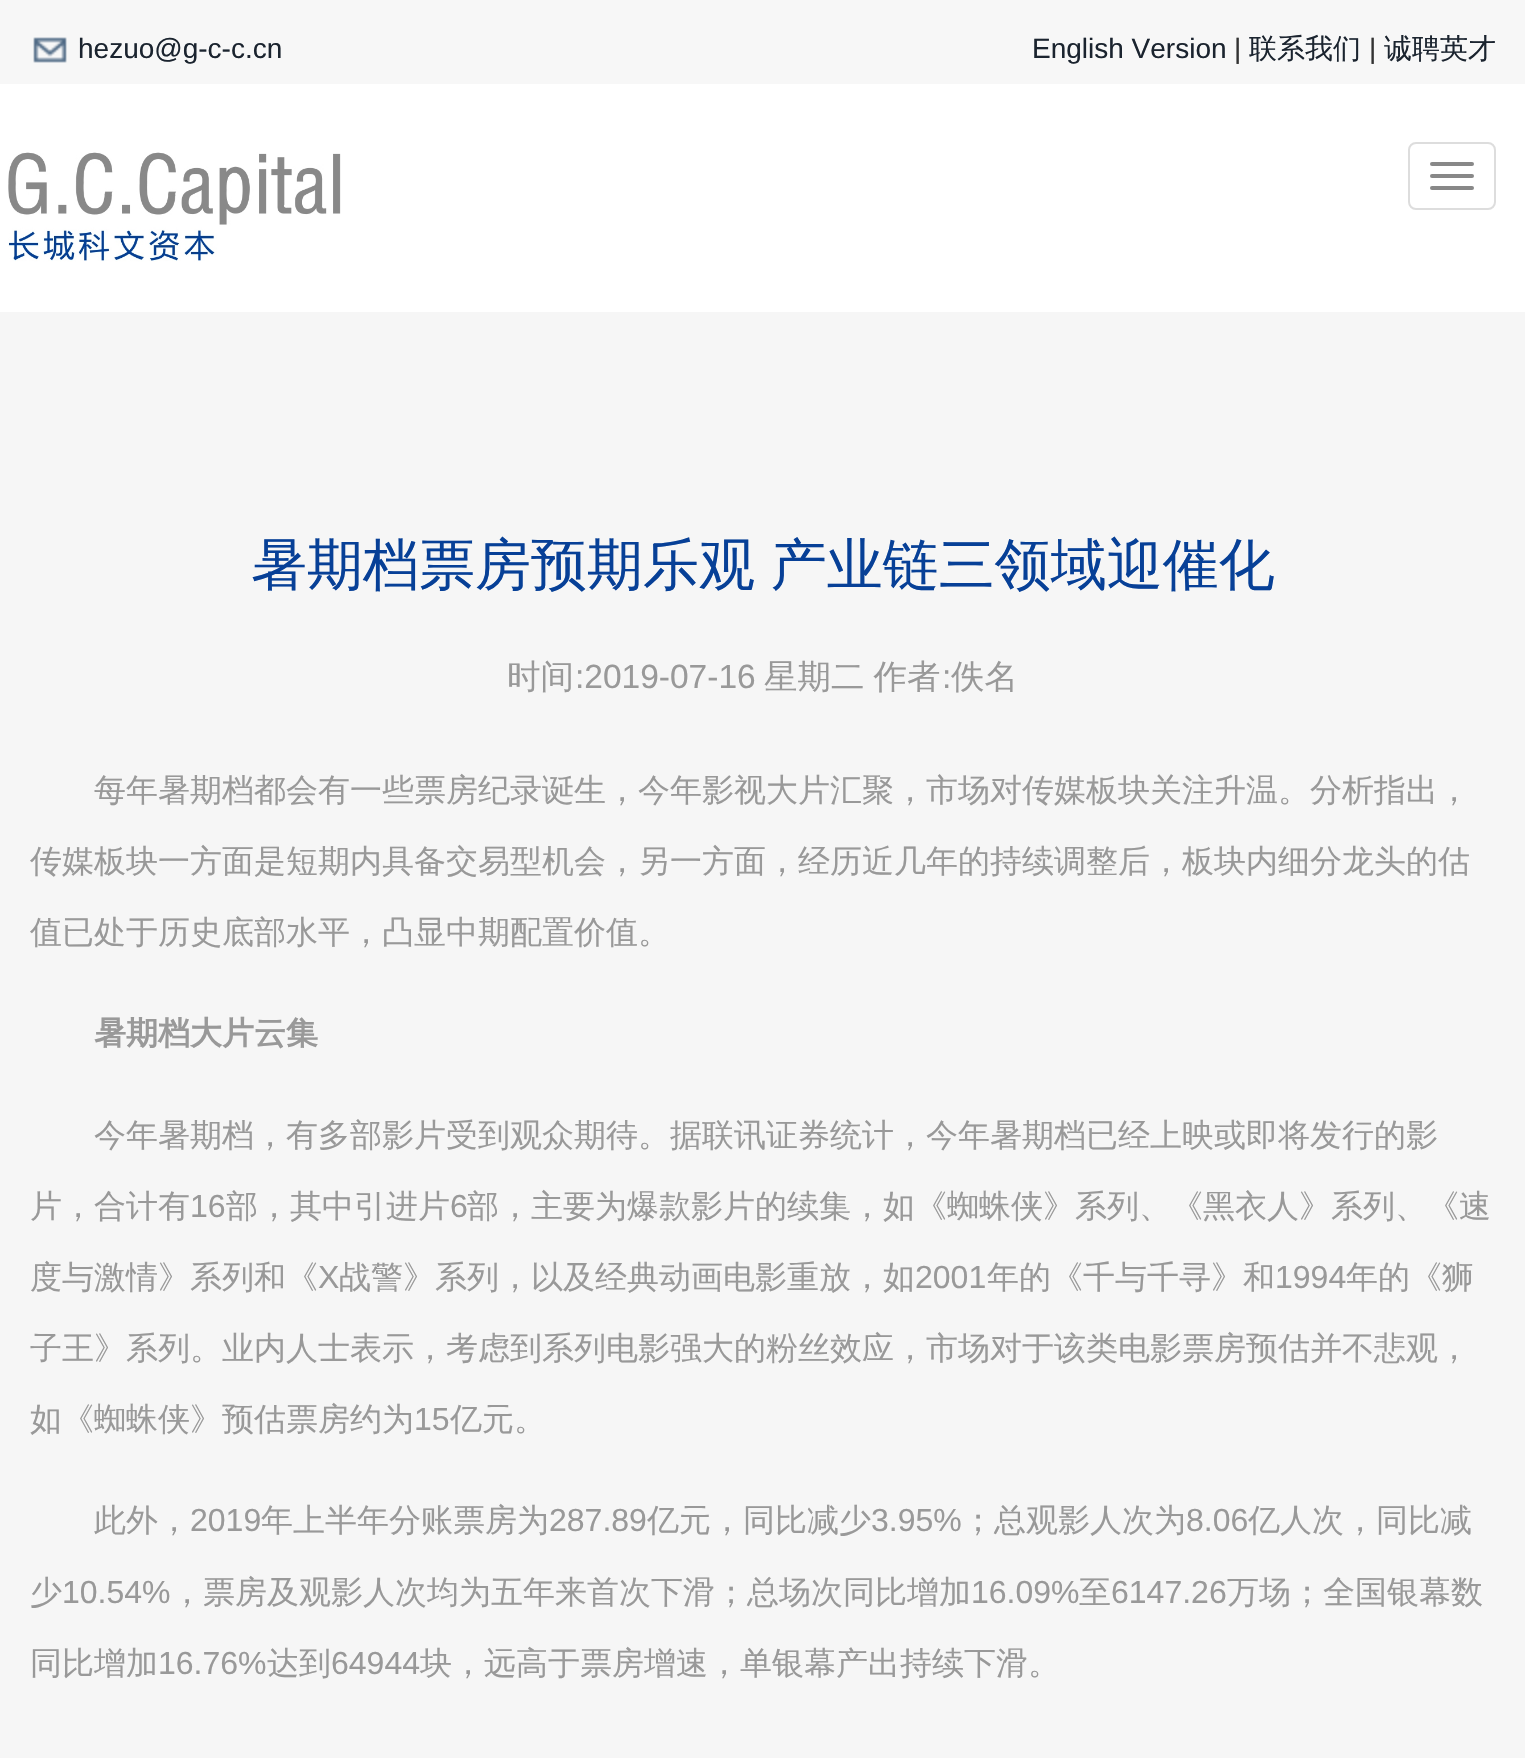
void draw(SkCanvas* canvas) {
    SkPaint paint;
    paint.setAntiAlias(true);
    auto spacedText = [&](const char* s, float x, float y, const SkFont& font, const SkPaint& ink, float letter, float word) {
        std::vector<SkGlyphID> glyphs(font.countText(s, strlen(s), SkTextEncoding::kUTF8));
        std::vector<float> xs(glyphs.size());
        font.textToGlyphs(s, strlen(s), SkTextEncoding::kUTF8, glyphs);
        font.getXPos(glyphs, xs, x);
        float extra = 0;
        for (size_t i = 0; i < glyphs.size(); i++) {
            xs[i] += extra;
            extra += letter + word * (glyphs[i] == font.unicharToGlyph(' '));
        }
        canvas->drawTextBlob(SkTextBlob::MakeFromPosHGlyphs(glyphs, xs, y, font), 0, 0, ink);
    };
    canvas->clear(0xFFFFFFFF);
    paint.setColor(0xFFF7F7F7);
    canvas->drawRect(SkRect::MakeXYWH(0, 0, 1525, 84), paint);
    canvas->drawImageRect(SkImages::DeferredFromEncodedData(SkData::MakeFromFileName("img1.png")), SkRect::MakeXYWH(33, 37, 34, 26), SkSamplingOptions());
    SkFont font1(fontMgr->matchFamilyStyle("Liberation Sans", SkFontStyle::Normal()), 28);
    font1.setSubpixel(true);
    paint.setColor(0xFF1B242F);
    canvas->drawString("hezuo@g-c-c.cn", 78, 58, font1, paint);
    canvas->drawString("English Version", 1032, 58, font1, paint);
    paint.setColor(0xFF333333);
    canvas->drawString("|", 1234, 58, font1, paint);
    SkFont font2(fontMgr->matchFamilyStyle("WenQuanYi Zen Hei", SkFontStyle(500, SkFontStyle::kNormal_Width, SkFontStyle::kUpright_Slant)), 28);
    font2.setSubpixel(true);
    paint.setColor(0xFF1B242F);
    canvas->drawString("联系我们", 1249, 58, font2, paint);
    paint.setColor(0xFF333333);
    canvas->drawString("|", 1369, 58, font1, paint);
    paint.setColor(0xFF1B242F);
    canvas->drawString("诚聘英才", 1384, 58, font2, paint);
    canvas->drawImageRect(SkImages::DeferredFromEncodedData(SkData::MakeFromFileName("img2.png")), SkRect::MakeXYWH(8, 152, 333, 110), SkSamplingOptions());
    paint.setStyle(SkPaint::kStroke_Style);
    paint.setStrokeWidth(2);
    paint.setColor(0xFFDDDDDD);
    canvas->drawRoundRect(SkRect::MakeXYWH(1409, 143, 86, 66), 7, 7, paint);
    paint.setStyle(SkPaint::kFill_Style);
    paint.setColor(0xFF888888);
    canvas->drawRoundRect(SkRect::MakeXYWH(1430, 162, 44, 4), 2, 2, paint);
    canvas->drawRoundRect(SkRect::MakeXYWH(1430, 174, 44, 4), 2, 2, paint);
    canvas->drawRoundRect(SkRect::MakeXYWH(1430, 186, 44, 4), 2, 2, paint);
    paint.setColor(0xFFF6F6F6);
    canvas->drawRect(SkRect::MakeXYWH(0, 312, 1525, 1446), paint);
    SkFont font3(fontMgr->matchFamilyStyle("WenQuanYi Zen Hei", SkFontStyle(500, SkFontStyle::kNormal_Width, SkFontStyle::kUpright_Slant)), 56);
    font3.setSubpixel(true);
    paint.setColor(0xFF074097);
    spacedText("暑期档票房预期乐观 产业链三领域迎催化", 251, 584, font3, paint, 0, -1);
    SkFont font4(fontMgr->matchFamilyStyle("WenQuanYi Zen Hei", SkFontStyle(500, SkFontStyle::kNormal_Width, SkFontStyle::kUpright_Slant)), 33.5f);
    font4.setSubpixel(true);
    paint.setColor(0xFF999999);
    canvas->drawString("时间", 507, 688, font4, paint);
    SkFont font5(fontMgr->matchFamilyStyle("Liberation Sans", SkFontStyle::Normal()), 33.5f);
    font5.setSubpixel(true);
    canvas->drawString(":2019-07-16", 575, 688, font5, paint);
    spacedText("星期二 作者", 764, 688, font4, paint, 0, -1);
    canvas->drawString(":", 942, 688, font5, paint);
    canvas->drawString("佚名", 951, 688, font4, paint);
    SkFont font6(fontMgr->matchFamilyStyle("WenQuanYi Zen Hei", SkFontStyle(500, SkFontStyle::kNormal_Width, SkFontStyle::kUpright_Slant)), 32);
    font6.setSubpixel(true);
    canvas->drawString("每年暑期档都会有一些票房纪录诞生，今年影视大片汇聚，市场对传媒板块关注升温。分析指出，", 94, 801, font6, paint);
    canvas->drawString("传媒板块一方面是短期内具备交易型机会，另一方面，经历近几年的持续调整后，板块内细分龙头的估", 30, 872, font6, paint);
    canvas->drawString("值已处于历史底部水平，凸显中期配置价值。", 30, 943, font6, paint);
    SkFont font7(fontMgr->matchFamilyStyle("WenQuanYi Zen Hei", SkFontStyle::Bold()), 32);
    font7.setSubpixel(true);
    canvas->drawString("暑期档大片云集", 94, 1044, font7, paint);
    canvas->drawString("今年暑期档，有多部影片受到观众期待。据联讯证券统计，今年暑期档已经上映或即将发行的影", 94, 1146, font6, paint);
    canvas->drawString("片，合计有", 30, 1217, font6, paint);
    SkFont font8(fontMgr->matchFamilyStyle("Liberation Sans", SkFontStyle::Normal()), 32);
    font8.setSubpixel(true);
    canvas->drawString("16", 190, 1217, font8, paint);
    canvas->drawString("部，其中引进片", 226, 1217, font6, paint);
    canvas->drawString("6", 450, 1217, font8, paint);
    canvas->drawString("部，主要为爆款影片的续集，如《蜘蛛侠》系列、《黑衣人》系列、《速", 467, 1217, font6, paint);
    canvas->drawString("度与激情》系列和《", 30, 1288, font6, paint);
    canvas->drawString("X", 318, 1288, font8, paint);
    canvas->drawString("战警》系列，以及经典动画电影重放，如", 339, 1288, font6, paint);
    canvas->drawString("2001", 915, 1288, font8, paint);
    canvas->drawString("年的《千与千寻》和", 987, 1288, font6, paint);
    canvas->drawString("1994", 1275, 1288, font8, paint);
    canvas->drawString("年的《狮", 1346, 1288, font6, paint);
    canvas->drawString("子王》系列。业内人士表示，考虑到系列电影强大的粉丝效应，市场对于该类电影票房预估并不悲观，", 30, 1359, font6, paint);
    canvas->drawString("如《蜘蛛侠》预估票房约为", 30, 1430, font6, paint);
    canvas->drawString("15", 414, 1430, font8, paint);
    canvas->drawString("亿元。", 450, 1430, font6, paint);
    canvas->drawString("此外，", 94, 1531, font6, paint);
    canvas->drawString("2019", 190, 1531, font8, paint);
    canvas->drawString("年上半年分账票房为", 261, 1531, font6, paint);
    canvas->drawString("287.89", 549, 1531, font8, paint);
    canvas->drawString("亿元，同比减少", 647, 1531, font6, paint);
    canvas->drawString("3.95%", 871, 1531, font8, paint);
    canvas->drawString("；总观影人次为", 962, 1531, font6, paint);
    canvas->drawString("8.06", 1186, 1531, font8, paint);
    canvas->drawString("亿人次，同比减", 1248, 1531, font6, paint);
    canvas->drawString("少", 30, 1603, font6, paint);
    canvas->drawString("10.54%", 62, 1603, font8, paint);
    canvas->drawString("，票房及观影人次均为五年来首次下滑；总场次同比增加", 171, 1603, font6, paint);
    canvas->drawString("16.09%", 971, 1603, font8, paint);
    canvas->drawString("至", 1079, 1603, font6, paint);
    canvas->drawString("6147.26", 1111, 1603, font8, paint);
    canvas->drawString("万场；全国银幕数", 1227, 1603, font6, paint);
    canvas->drawString("同比增加", 30, 1674, font6, paint);
    canvas->drawString("16.76%", 158, 1674, font8, paint);
    canvas->drawString("达到", 267, 1674, font6, paint);
    canvas->drawString("64944", 331, 1674, font8, paint);
    canvas->drawString("块，远高于票房增速，单银幕产出持续下滑。", 420, 1674, font6, paint);
}
